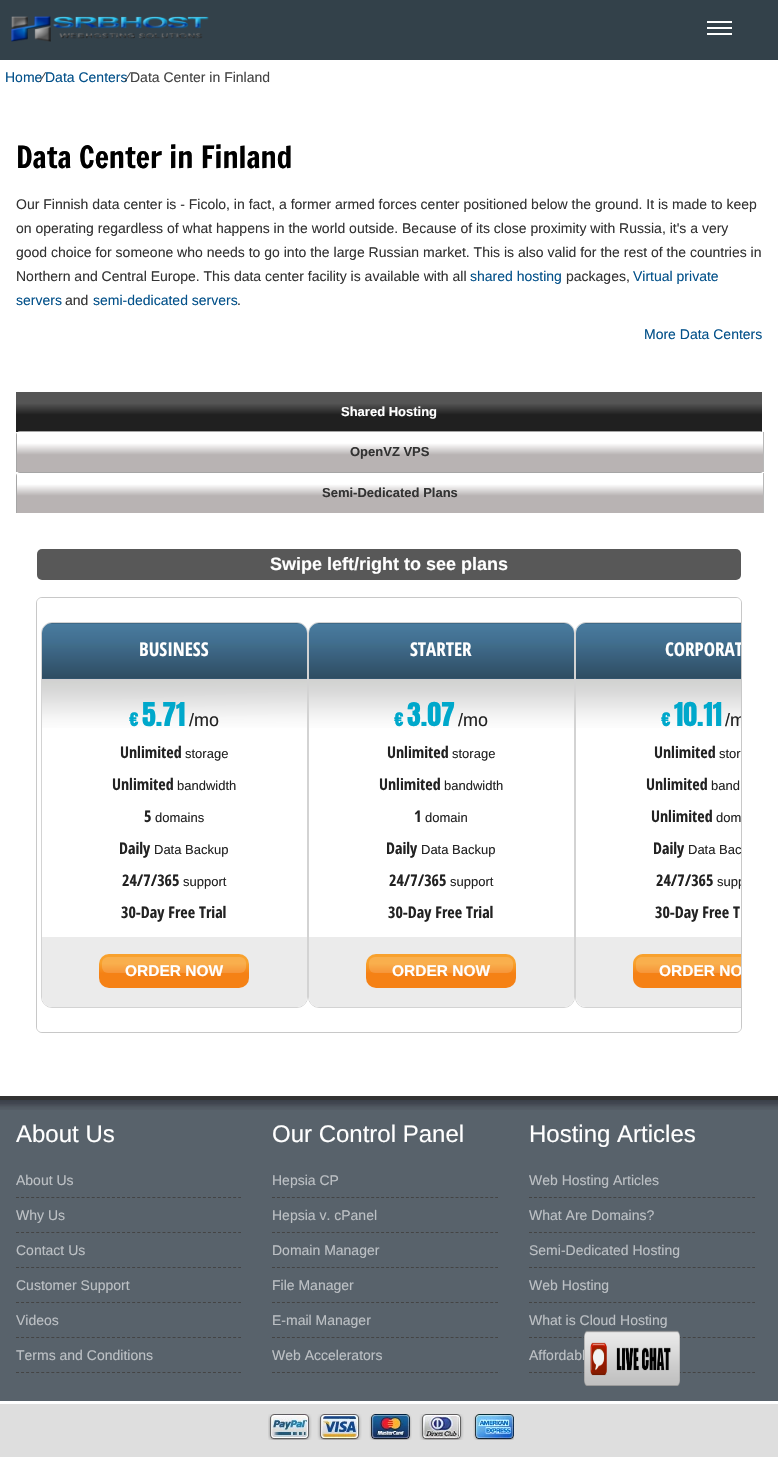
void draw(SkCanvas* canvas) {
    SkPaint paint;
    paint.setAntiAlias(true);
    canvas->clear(0xFFFFFFFF);
    paint.setColor(0xFF33414A);
    canvas->drawRect(SkRect::MakeXYWH(0, 0, 778, 60), paint);
    paint.setColor(0xFFFFFFFF);
    canvas->drawRect(SkRect::MakeXYWH(707, 21, 25, 2), paint);
    canvas->drawRect(SkRect::MakeXYWH(707, 33, 25, 2), paint);
    canvas->drawRect(SkRect::MakeXYWH(707, 27, 25, 2), paint);
    canvas->drawImageRect(SkImages::DeferredFromEncodedData(SkData::MakeFromFileName("img1.png")), SkRect::MakeXYWH(11, 16, 198, 26), SkSamplingOptions());
    paint.setColor(0xFF58626B);
    canvas->drawRect(SkRect::MakeXYWH(0, 1110, 778, 291), paint);
    paint.setStyle(SkPaint::kStroke_Style);
    paint.setStrokeWidth(1);
    paint.setColor(0xFF444444);
    paint.setPathEffect(SkDashPathEffect::Make({{3, 1.96f}}, 0));
    canvas->drawPath(SkPathBuilder().moveTo(529, 1337.5f).lineTo(755, 1337.5f).detach(), paint);
    paint.setPathEffect(nullptr);
    paint.setPathEffect(SkDashPathEffect::Make({{3, 1.96f}}, 0));
    canvas->drawPath(SkPathBuilder().moveTo(529, 1372.5f).lineTo(755, 1372.5f).detach(), paint);
    paint.setPathEffect(nullptr);
    SkFont font1(fontMgr->matchFamilyStyle("Liberation Sans", SkFontStyle::Normal()), 14);
    font1.setSubpixel(true);
    paint.setStyle(SkPaint::kFill_Style);
    paint.setColor(0xFFBCC0C4);
    canvas->drawString("Affordabl", 529, 1360, font1, paint);
    canvas->drawImageRect(SkImages::DeferredFromEncodedData(SkData::MakeFromFileName("img2.png")), SkRect::MakeXYWH(584, 1330, 96, 56), SkSamplingOptions());
    paint.setColor(0xFF03518A);
    canvas->drawString("Home", 5, 82, font1, paint);
    paint.setColor(0xFF424242);
    canvas->drawString("⁄", 42, 82, font1, paint);
    paint.setColor(0xFF03518A);
    canvas->drawString("Data Centers", 45, 82, font1, paint);
    paint.setColor(0xFF424242);
    canvas->drawString("⁄", 127, 82, font1, paint);
    canvas->drawString("Data Center in Finland", 130, 82, font1, paint);
    SkFont font2(fontMgr->matchFamilyStyle("Francois One", SkFontStyle::Normal()), 30);
    font2.setSubpixel(true);
    paint.setColor(0xFF000000);
    canvas->drawString("Data Center in Finland", 16, 168, font2, paint);
    paint.setColor(0xFF333333);
    canvas->drawString("Our Finnish data center is - Ficolo, in fact, a former armed forces center positioned below the ground. It is made to keep", 16, 209, font1, paint);
    canvas->drawString("on operating regardless of what happens in the world outside. Because of its close proximity with Russia, it's a very", 16, 233, font1, paint);
    canvas->drawString("good choice for someone who needs to go into the large Russian market. This is also valid for the rest of the countries in", 16, 257, font1, paint);
    canvas->drawString("Northern and Central Europe. Тhis data center facility is available with all", 16, 281, font1, paint);
    paint.setColor(0xFF03518A);
    canvas->drawString("shared hosting", 470, 281, font1, paint);
    paint.setColor(0xFF333333);
    canvas->drawString("packages,", 566, 281, font1, paint);
    paint.setColor(0xFF03518A);
    canvas->drawString("Virtual private", 633, 281, font1, paint);
    canvas->drawString("servers", 16, 305, font1, paint);
    paint.setColor(0xFF333333);
    canvas->drawString("and", 65, 305, font1, paint);
    paint.setColor(0xFF03518A);
    canvas->drawString("semi-dedicated servers", 93, 305, font1, paint);
    paint.setColor(0xFF333333);
    canvas->drawString(".", 237, 305, font1, paint);
    paint.setColor(0xFF03518A);
    canvas->drawString("More Data Centers", 644, 339, font1, paint);
    {
        const SkColor colors[] = {0xFF202020, 0xFF555555};
        const float stops[] = {0.43f, 0.72f};
        const SkPoint ends[] = {{16, 432}, {16, 392}};
        paint.setShader(SkGradientShader::MakeLinear(ends, colors, stops, 2, SkTileMode::kClamp));
        paint.setAlpha(255);
    }
    canvas->drawRect(SkRect::MakeXYWH(16, 392, 746, 40), paint);
    SkFont font3(fontMgr->matchFamilyStyle("Liberation Sans", SkFontStyle::Bold()), 13);
    font3.setSubpixel(true);
    paint.setShader(nullptr);
    paint.setColor(0xFFFFFFFF);
    canvas->drawString("Shared Hosting", 341, 416, font3, paint);
    paint.setColor(0xFFA5A5A5);
    canvas->drawPath(SkPathBuilder(SkPathFillType::kEvenOdd).moveTo(20, 431).lineTo(760, 431).cubicTo(762, 431, 764, 433, 764, 435).lineTo(764, 472).lineTo(16, 472).lineTo(16, 435).cubicTo(16, 433, 18, 431, 20, 431).close().moveTo(20, 432).lineTo(760, 432).cubicTo(762, 432, 763, 433, 763, 435).lineTo(763, 472).lineTo(17, 472).lineTo(17, 435).cubicTo(17, 433, 18, 432, 20, 432).close().detach(), paint);
    {
        const SkColor colors[] = {0xFFB8B3B3, 0xFFFFFFFF};
        const float stops[] = {0.43f, 0.72f};
        const SkPoint ends[] = {{17, 472}, {17, 432}};
        paint.setShader(SkGradientShader::MakeLinear(ends, colors, stops, 2, SkTileMode::kClamp));
        paint.setAlpha(255);
    }
    canvas->drawRect(SkRect::MakeXYWH(17, 432, 746, 40), paint);
    paint.setShader(nullptr);
    paint.setColor(0xFFB8B8B8);
    canvas->drawRect(SkRect::MakeXYWH(763, 432, 1, 40), paint);
    paint.setColor(0xFF333333);
    canvas->drawString("OpenVZ VPS", 350, 456, font3, paint);
    paint.setColor(0xFFA5A5A5);
    canvas->drawPath(SkPathBuilder(SkPathFillType::kEvenOdd).moveTo(20, 472).lineTo(760, 472).cubicTo(762, 472, 764, 474, 764, 476).lineTo(764, 513).lineTo(16, 513).lineTo(16, 476).cubicTo(16, 474, 18, 472, 20, 472).close().moveTo(20, 473).lineTo(760, 473).cubicTo(762, 473, 763, 474, 763, 476).lineTo(763, 513).lineTo(17, 513).lineTo(17, 476).cubicTo(17, 474, 18, 473, 20, 473).close().detach(), paint);
    {
        const SkColor colors[] = {0xFFB8B3B3, 0xFFFFFFFF};
        const float stops[] = {0.43f, 0.72f};
        const SkPoint ends[] = {{17, 513}, {17, 473}};
        paint.setShader(SkGradientShader::MakeLinear(ends, colors, stops, 2, SkTileMode::kClamp));
        paint.setAlpha(255);
    }
    canvas->drawRect(SkRect::MakeXYWH(17, 473, 746, 40), paint);
    paint.setShader(nullptr);
    paint.setColor(0xFFB8B8B8);
    canvas->drawRect(SkRect::MakeXYWH(763, 473, 1, 40), paint);
    paint.setColor(0xFF333333);
    canvas->drawString("Semi-Dedicated Plans", 322, 497, font3, paint);
    paint.setColor(0xFF585858);
    canvas->drawRoundRect(SkRect::MakeXYWH(37, 549, 704, 31), 5, 5, paint);
    SkFont font4(fontMgr->matchFamilyStyle("Liberation Sans", SkFontStyle::Bold()), 18);
    font4.setSubpixel(true);
    paint.setColor(0xFFFFFFFF);
    canvas->drawString("Swipe left/right to see plans", 270, 570, font4, paint);
    paint.setStyle(SkPaint::kStroke_Style);
    paint.setColor(0xFFC8C8C8);
    canvas->drawRoundRect(SkRect::MakeXYWH(36.5f, 597.5f, 705, 435), 5.5f, 5.5f, paint);
    paint.setStyle(SkPaint::kFill_Style);
    paint.setColor(0xFFFFFFFF);
    canvas->drawRoundRect(SkRect::MakeXYWH(37, 598, 704, 434), 5, 5, paint);
    paint.setStyle(SkPaint::kStroke_Style);
    paint.setColor(0xFFD3D3D3);
    canvas->drawRoundRect(SkRect::MakeXYWH(41.5f, 622.5f, 266, 385), 10.5f, 10.5f, paint);
    paint.setStyle(SkPaint::kFill_Style);
    paint.setColor(0xFFFFFFFF);
    canvas->drawRoundRect(SkRect::MakeXYWH(42, 623, 265, 384), 10, 10, paint);
    {
        const SkColor colors[] = {0xFF365A74, 0xFF497B9E, 0xFF416E8F, 0xFF3F6B87, 0xFF3D6685, 0xFF2E4D62, 0xFF365A74};
        const float stops[] = {0, 0.02f, 0.35f, 0.42f, 0.49f, 0.98f, 1};
        const SkPoint ends[] = {{175, 623}, {175, 679}};
        paint.setShader(SkGradientShader::MakeLinear(ends, colors, stops, 7, SkTileMode::kClamp));
        paint.setAlpha(255);
    }
    canvas->drawPath(SkPathBuilder().moveTo(52, 623).lineTo(297, 623).cubicTo(302.5f, 623, 307, 627.5f, 307, 633).lineTo(307, 679).lineTo(42, 679).lineTo(42, 633).cubicTo(42, 627.5f, 46.5f, 623, 52, 623).close().detach(), paint);
    SkFont font5(fontMgr->matchFamilyStyle("Open Sans Condensed", SkFontStyle::Bold()), 19);
    font5.setSubpixel(true);
    paint.setShader(nullptr);
    paint.setColor(0xFFFFFFFF);
    canvas->drawString("BUSINESS", 139, 656, font5, paint);
    {
        const SkColor colors[] = {0xFFD1D0D2, 0xFFD2D3D1, 0xFFD9D9D9, 0xFFF7F7F7, 0xFFFFFFFF, 0xFFFFFFFF};
        const float stops[] = {0, 0.01f, 0.05f, 0.16f, 0.21f, 1};
        const SkPoint ends[] = {{174, 679}, {175, 929}};
        paint.setShader(SkGradientShader::MakeLinear(ends, colors, stops, 6, SkTileMode::kClamp));
        paint.setAlpha(255);
    }
    canvas->drawRect(SkRect::MakeXYWH(42, 679, 265, 49), paint);
    SkFont font6(fontMgr->matchFamilyStyle("Anton", SkFontStyle::Normal()), 18);
    font6.setSubpixel(true);
    paint.setShader(nullptr);
    paint.setColor(0xFF00A8CB);
    canvas->drawString("€", 129, 726, font6, paint);
    SkFont font7(fontMgr->matchFamilyStyle("Anton", SkFontStyle::Normal()), 28);
    font7.setSubpixel(true);
    canvas->drawString("5.71", 142, 726, font7, paint);
    SkFont font8(fontMgr->matchFamilyStyle("Liberation Sans", SkFontStyle::Normal()), 18);
    font8.setSubpixel(true);
    paint.setColor(0xFF222222);
    canvas->drawString("/mo", 189, 726, font8, paint);
    SkFont font9(fontMgr->matchFamilyStyle("Open Sans Condensed", SkFontStyle::Bold()), 16);
    font9.setSubpixel(true);
    canvas->drawString("Unlimited", 120, 758, font9, paint);
    SkFont font10(fontMgr->matchFamilyStyle("Liberation Sans", SkFontStyle::Normal()), 13);
    font10.setSubpixel(true);
    canvas->drawString("storage", 185, 758, font10, paint);
    canvas->drawString("Unlimited", 112, 790, font9, paint);
    canvas->drawString("bandwidth", 177, 790, font10, paint);
    canvas->drawString("5", 144, 822, font9, paint);
    canvas->drawString("domains", 155, 822, font10, paint);
    canvas->drawString("Daily", 119, 854, font9, paint);
    canvas->drawString("Data Backup", 154, 854, font10, paint);
    canvas->drawString("24/7/365", 122, 886, font9, paint);
    canvas->drawString("support", 183, 886, font10, paint);
    canvas->drawString("30-Day Free Trial", 121, 918, font9, paint);
    paint.setColor(0xFFEBEBEB);
    canvas->drawPath(SkPathBuilder().moveTo(42, 937).lineTo(307, 937).lineTo(307, 997).cubicTo(307, 1002.5f, 302.5f, 1007, 297, 1007).lineTo(52, 1007).cubicTo(46.5f, 1007, 42, 1002.5f, 42, 997).close().detach(), paint);
    {
        const SkColor colors[] = {0xFFF58115, 0xFFF8A12D};
        const float stops[] = {0.43f, 0.72f};
        const SkPoint ends[] = {{99, 988}, {99, 954}};
        paint.setShader(SkGradientShader::MakeLinear(ends, colors, stops, 2, SkTileMode::kClamp));
        paint.setAlpha(255);
    }
    canvas->drawRoundRect(SkRect::MakeXYWH(99, 954, 150, 34), 10, 10, paint);
    SkFont font11(fontMgr->matchFamilyStyle("Liberation Sans", SkFontStyle::Bold()), 15.5f);
    font11.setSubpixel(true);
    paint.setShader(nullptr);
    paint.setColor(0xFFFFFFFF);
    canvas->drawString("ORDER NOW", 125, 976, font11, paint);
    paint.setColor(0x26FFFFFF);
    canvas->drawRoundRect(SkRect::MakeXYWH(102, 957, 144, 16), 6, 6, paint);
    paint.setStyle(SkPaint::kStroke_Style);
    paint.setColor(0xFFD3D3D3);
    canvas->drawRoundRect(SkRect::MakeXYWH(308.5f, 622.5f, 266, 385), 10.5f, 10.5f, paint);
    paint.setStyle(SkPaint::kFill_Style);
    paint.setColor(0xFFFFFFFF);
    canvas->drawRoundRect(SkRect::MakeXYWH(309, 623, 265, 384), 10, 10, paint);
    {
        const SkColor colors[] = {0xFF365A74, 0xFF497B9E, 0xFF416E8F, 0xFF3F6B87, 0xFF3D6685, 0xFF2E4D62, 0xFF365A74};
        const float stops[] = {0, 0.02f, 0.35f, 0.42f, 0.49f, 0.98f, 1};
        const SkPoint ends[] = {{442, 623}, {442, 679}};
        paint.setShader(SkGradientShader::MakeLinear(ends, colors, stops, 7, SkTileMode::kClamp));
        paint.setAlpha(255);
    }
    canvas->drawPath(SkPathBuilder().moveTo(319, 623).lineTo(564, 623).cubicTo(569.5f, 623, 574, 627.5f, 574, 633).lineTo(574, 679).lineTo(309, 679).lineTo(309, 633).cubicTo(309, 627.5f, 313.5f, 623, 319, 623).close().detach(), paint);
    paint.setShader(nullptr);
    paint.setColor(0xFFFFFFFF);
    canvas->drawString("STARTER", 410, 656, font5, paint);
    {
        const SkColor colors[] = {0xFFD1D0D2, 0xFFD2D3D1, 0xFFD9D9D9, 0xFFF7F7F7, 0xFFFFFFFF, 0xFFFFFFFF};
        const float stops[] = {0, 0.01f, 0.05f, 0.16f, 0.21f, 1};
        const SkPoint ends[] = {{442, 679}, {442, 929}};
        paint.setShader(SkGradientShader::MakeLinear(ends, colors, stops, 6, SkTileMode::kClamp));
        paint.setAlpha(255);
    }
    canvas->drawRect(SkRect::MakeXYWH(309, 679, 265, 49), paint);
    paint.setShader(nullptr);
    paint.setColor(0xFF00A8CB);
    canvas->drawString("€", 394, 726, font6, paint);
    canvas->drawString("3.07", 407, 726, font7, paint);
    paint.setColor(0xFF222222);
    canvas->drawString("/mo", 458, 726, font8, paint);
    canvas->drawString("Unlimited", 387, 758, font9, paint);
    canvas->drawString("storage", 452, 758, font10, paint);
    canvas->drawString("Unlimited", 379, 790, font9, paint);
    canvas->drawString("bandwidth", 444, 790, font10, paint);
    canvas->drawString("1", 414, 822, font9, paint);
    canvas->drawString("domain", 425, 822, font10, paint);
    canvas->drawString("Daily", 386, 854, font9, paint);
    canvas->drawString("Data Backup", 421, 854, font10, paint);
    canvas->drawString("24/7/365", 389, 886, font9, paint);
    canvas->drawString("support", 450, 886, font10, paint);
    canvas->drawString("30-Day Free Trial", 388, 918, font9, paint);
    paint.setColor(0xFFEBEBEB);
    canvas->drawPath(SkPathBuilder().moveTo(309, 937).lineTo(574, 937).lineTo(574, 997).cubicTo(574, 1002.5f, 569.5f, 1007, 564, 1007).lineTo(319, 1007).cubicTo(313.5f, 1007, 309, 1002.5f, 309, 997).close().detach(), paint);
    {
        const SkColor colors[] = {0xFFF58115, 0xFFF8A12D};
        const float stops[] = {0.43f, 0.72f};
        const SkPoint ends[] = {{366, 988}, {366, 954}};
        paint.setShader(SkGradientShader::MakeLinear(ends, colors, stops, 2, SkTileMode::kClamp));
        paint.setAlpha(255);
    }
    canvas->drawRoundRect(SkRect::MakeXYWH(366, 954, 150, 34), 10, 10, paint);
    paint.setShader(nullptr);
    paint.setColor(0xFFFFFFFF);
    canvas->drawString("ORDER NOW", 392, 976, font11, paint);
    paint.setColor(0x26FFFFFF);
    canvas->drawRoundRect(SkRect::MakeXYWH(369, 957, 144, 16), 6, 6, paint);
    paint.setColor(0xFFD3D3D3);
    canvas->drawPath(SkPathBuilder().moveTo(586, 622).cubicTo(580, 622, 575, 627, 575, 633).lineTo(575, 997).cubicTo(575, 1003, 580, 1008, 586, 1008).lineTo(741, 1008).lineTo(741, 1007).lineTo(586, 1007).cubicTo(580, 1007, 576, 1003, 576, 997).lineTo(576, 633).cubicTo(576, 627, 580, 623, 586, 623).lineTo(741, 623).lineTo(741, 622).close().detach(), paint);
    paint.setColor(0xFFFFFFFF);
    canvas->drawPath(SkPathBuilder().moveTo(586, 623).lineTo(741, 623).lineTo(741, 1007).lineTo(586, 1007).cubicTo(580.5f, 1007, 576, 1002.5f, 576, 997).lineTo(576, 633).cubicTo(576, 627.5f, 580.5f, 623, 586, 623).close().detach(), paint);
    {
        const SkColor colors[] = {0xFF365A74, 0xFF497B9E, 0xFF416E8F, 0xFF3F6B87, 0xFF3D6685, 0xFF2E4D62, 0xFF365A74};
        const float stops[] = {0, 0.02f, 0.35f, 0.42f, 0.49f, 0.98f, 1};
        const SkPoint ends[] = {{709, 623}, {709, 679}};
        paint.setShader(SkGradientShader::MakeLinear(ends, colors, stops, 7, SkTileMode::kClamp));
        paint.setAlpha(255);
    }
    canvas->drawPath(SkPathBuilder().moveTo(586, 623).lineTo(741, 623).lineTo(741, 679).lineTo(576, 679).lineTo(576, 633).cubicTo(576, 627.5f, 580.5f, 623, 586, 623).close().detach(), paint);
    canvas->save();
    canvas->clipPath(SkPathBuilder().moveTo(42, 598).lineTo(736, 598).cubicTo(739, 598, 741, 600, 741, 603).lineTo(741, 1027).cubicTo(741, 1030, 739, 1032, 736, 1032).lineTo(42, 1032).cubicTo(39, 1032, 37, 1030, 37, 1027).lineTo(37, 603).cubicTo(37, 600, 39, 598, 42, 598).close().detach(), true);
    paint.setShader(nullptr);
    paint.setColor(0xFFFFFFFF);
    canvas->drawString("CORPORAT", 665, 656, font5, paint);
    canvas->restore();
    {
        const SkColor colors[] = {0xFFD1D0D2, 0xFFD2D3D1, 0xFFD9D9D9, 0xFFF7F7F7, 0xFFFFFFFF, 0xFFFFFFFF};
        const float stops[] = {0, 0.01f, 0.05f, 0.16f, 0.21f, 1};
        const SkPoint ends[] = {{709, 679}, {709, 929}};
        paint.setShader(SkGradientShader::MakeLinear(ends, colors, stops, 6, SkTileMode::kClamp));
        paint.setAlpha(255);
    }
    canvas->drawRect(SkRect::MakeXYWH(576, 679, 165, 49), paint);
    paint.setShader(nullptr);
    paint.setColor(0xFF00A8CB);
    canvas->drawString("€", 661, 726, font6, paint);
    canvas->drawString("10.11", 674, 726, font7, paint);
    canvas->save();
    canvas->clipPath(SkPathBuilder().moveTo(42, 598).lineTo(736, 598).cubicTo(739, 598, 741, 600, 741, 603).lineTo(741, 1027).cubicTo(741, 1030, 739, 1032, 736, 1032).lineTo(42, 1032).cubicTo(39, 1032, 37, 1030, 37, 1027).lineTo(37, 603).cubicTo(37, 600, 39, 598, 42, 598).close().detach(), true);
    paint.setColor(0xFF222222);
    canvas->drawString("/m", 725, 726, font8, paint);
    canvas->restore();
    canvas->drawString("Unlimited", 654, 758, font9, paint);
    canvas->drawString("stor", 719, 758, font10, paint);
    canvas->drawString("Unlimited", 646, 790, font9, paint);
    canvas->drawString("band", 711, 790, font10, paint);
    canvas->drawString("Unlimited", 651, 822, font9, paint);
    canvas->drawString("dom", 716, 822, font10, paint);
    canvas->drawString("Daily", 653, 854, font9, paint);
    canvas->drawString("Data Bac", 688, 854, font10, paint);
    canvas->drawString("24/7/365", 656, 886, font9, paint);
    canvas->save();
    canvas->clipPath(SkPathBuilder().moveTo(42, 598).lineTo(736, 598).cubicTo(739, 598, 741, 600, 741, 603).lineTo(741, 1027).cubicTo(741, 1030, 739, 1032, 736, 1032).lineTo(42, 1032).cubicTo(39, 1032, 37, 1030, 37, 1027).lineTo(37, 603).cubicTo(37, 600, 39, 598, 42, 598).close().detach(), true);
    canvas->drawString("supp", 717, 886, font10, paint);
    canvas->restore();
    canvas->drawString("30-Day Free T", 655, 918, font9, paint);
    paint.setColor(0xFFEBEBEB);
    canvas->drawPath(SkPathBuilder().moveTo(576, 937).lineTo(741, 937).lineTo(741, 1007).lineTo(586, 1007).cubicTo(580.5f, 1007, 576, 1002.5f, 576, 997).close().detach(), paint);
    {
        const SkColor colors[] = {0xFFF58115, 0xFFF8A12D};
        const float stops[] = {0.43f, 0.72f};
        const SkPoint ends[] = {{633, 988}, {633, 954}};
        paint.setShader(SkGradientShader::MakeLinear(ends, colors, stops, 2, SkTileMode::kClamp));
        paint.setAlpha(255);
    }
    canvas->drawPath(SkPathBuilder().moveTo(643, 954).lineTo(741, 954).lineTo(741, 988).lineTo(643, 988).cubicTo(637.5f, 988, 633, 983.5f, 633, 978).lineTo(633, 964).cubicTo(633, 958.5f, 637.5f, 954, 643, 954).close().detach(), paint);
    canvas->save();
    canvas->clipPath(SkPathBuilder().moveTo(42, 598).lineTo(736, 598).cubicTo(739, 598, 741, 600, 741, 603).lineTo(741, 1027).cubicTo(741, 1030, 739, 1032, 736, 1032).lineTo(42, 1032).cubicTo(39, 1032, 37, 1030, 37, 1027).lineTo(37, 603).cubicTo(37, 600, 39, 598, 42, 598).close().detach(), true);
    paint.setShader(nullptr);
    paint.setColor(0xFFFFFFFF);
    canvas->drawString("ORDER NO", 659, 976, font11, paint);
    canvas->restore();
    paint.setColor(0x26FFFFFF);
    canvas->drawPath(SkPathBuilder().moveTo(642, 957).lineTo(741, 957).lineTo(741, 973).lineTo(642, 973).cubicTo(638.5f, 973, 636, 970.5f, 636, 967).lineTo(636, 963).cubicTo(636, 959.5f, 638.5f, 957, 642, 957).close().detach(), paint);
    canvas->drawImageRect(SkImages::DeferredFromEncodedData(SkData::MakeFromFileName("img3.png")), SkRect::MakeXYWH(0, 1100, 778, 10), SkSamplingOptions());
    paint.setColor(0xFF323232);
    canvas->drawRect(SkRect::MakeXYWH(0, 1096, 778, 4), paint);
    SkFont font12(fontMgr->matchFamilyStyle("Liberation Sans", SkFontStyle::Normal()), 24);
    font12.setSubpixel(true);
    paint.setColor(0xFFFFFFFF);
    canvas->drawString("About Us", 16, 1142, font12, paint);
    paint.setStyle(SkPaint::kStroke_Style);
    paint.setColor(0xFF444444);
    paint.setPathEffect(SkDashPathEffect::Make({{3, 2.05f}}, 0));
    canvas->drawPath(SkPathBuilder().moveTo(16, 1197.5f).lineTo(241, 1197.5f).detach(), paint);
    paint.setPathEffect(nullptr);
    paint.setStyle(SkPaint::kFill_Style);
    paint.setColor(0xFFBCC0C4);
    canvas->drawString("About Us", 16, 1185, font1, paint);
    paint.setStyle(SkPaint::kStroke_Style);
    paint.setColor(0xFF444444);
    paint.setPathEffect(SkDashPathEffect::Make({{3, 2.05f}}, 0));
    canvas->drawPath(SkPathBuilder().moveTo(16, 1232.5f).lineTo(241, 1232.5f).detach(), paint);
    paint.setPathEffect(nullptr);
    paint.setStyle(SkPaint::kFill_Style);
    paint.setColor(0xFFBCC0C4);
    canvas->drawString("Why Us", 16, 1220, font1, paint);
    paint.setStyle(SkPaint::kStroke_Style);
    paint.setColor(0xFF444444);
    paint.setPathEffect(SkDashPathEffect::Make({{3, 2.05f}}, 0));
    canvas->drawPath(SkPathBuilder().moveTo(16, 1267.5f).lineTo(241, 1267.5f).detach(), paint);
    paint.setPathEffect(nullptr);
    paint.setStyle(SkPaint::kFill_Style);
    paint.setColor(0xFFBCC0C4);
    canvas->drawString("Contact Us", 16, 1255, font1, paint);
    paint.setStyle(SkPaint::kStroke_Style);
    paint.setColor(0xFF444444);
    paint.setPathEffect(SkDashPathEffect::Make({{3, 2.05f}}, 0));
    canvas->drawPath(SkPathBuilder().moveTo(16, 1302.5f).lineTo(241, 1302.5f).detach(), paint);
    paint.setPathEffect(nullptr);
    paint.setStyle(SkPaint::kFill_Style);
    paint.setColor(0xFFBCC0C4);
    canvas->drawString("Customer Support", 16, 1290, font1, paint);
    paint.setStyle(SkPaint::kStroke_Style);
    paint.setColor(0xFF444444);
    paint.setPathEffect(SkDashPathEffect::Make({{3, 2.05f}}, 0));
    canvas->drawPath(SkPathBuilder().moveTo(16, 1337.5f).lineTo(241, 1337.5f).detach(), paint);
    paint.setPathEffect(nullptr);
    paint.setStyle(SkPaint::kFill_Style);
    paint.setColor(0xFFBCC0C4);
    canvas->drawString("Videos", 16, 1325, font1, paint);
    paint.setStyle(SkPaint::kStroke_Style);
    paint.setColor(0xFF444444);
    paint.setPathEffect(SkDashPathEffect::Make({{3, 2.05f}}, 0));
    canvas->drawPath(SkPathBuilder().moveTo(16, 1372.5f).lineTo(241, 1372.5f).detach(), paint);
    paint.setPathEffect(nullptr);
    paint.setStyle(SkPaint::kFill_Style);
    paint.setColor(0xFFBCC0C4);
    canvas->drawString("Terms and Conditions", 16, 1360, font1, paint);
    paint.setColor(0xFFFFFFFF);
    canvas->drawString("Our Control Panel", 272, 1142, font12, paint);
    paint.setStyle(SkPaint::kStroke_Style);
    paint.setColor(0xFF444444);
    paint.setPathEffect(SkDashPathEffect::Make({{3, 1.96f}}, 0));
    canvas->drawPath(SkPathBuilder().moveTo(272, 1197.5f).lineTo(498, 1197.5f).detach(), paint);
    paint.setPathEffect(nullptr);
    paint.setStyle(SkPaint::kFill_Style);
    paint.setColor(0xFFBCC0C4);
    canvas->drawString("Hepsia CP", 272, 1185, font1, paint);
    paint.setStyle(SkPaint::kStroke_Style);
    paint.setColor(0xFF444444);
    paint.setPathEffect(SkDashPathEffect::Make({{3, 1.96f}}, 0));
    canvas->drawPath(SkPathBuilder().moveTo(272, 1232.5f).lineTo(498, 1232.5f).detach(), paint);
    paint.setPathEffect(nullptr);
    paint.setStyle(SkPaint::kFill_Style);
    paint.setColor(0xFFBCC0C4);
    canvas->drawString("Hepsia v. cPanel", 272, 1220, font1, paint);
    paint.setStyle(SkPaint::kStroke_Style);
    paint.setColor(0xFF444444);
    paint.setPathEffect(SkDashPathEffect::Make({{3, 1.96f}}, 0));
    canvas->drawPath(SkPathBuilder().moveTo(272, 1267.5f).lineTo(498, 1267.5f).detach(), paint);
    paint.setPathEffect(nullptr);
    paint.setStyle(SkPaint::kFill_Style);
    paint.setColor(0xFFBCC0C4);
    canvas->drawString("Domain Manager", 272, 1255, font1, paint);
    paint.setStyle(SkPaint::kStroke_Style);
    paint.setColor(0xFF444444);
    paint.setPathEffect(SkDashPathEffect::Make({{3, 1.96f}}, 0));
    canvas->drawPath(SkPathBuilder().moveTo(272, 1302.5f).lineTo(498, 1302.5f).detach(), paint);
    paint.setPathEffect(nullptr);
    paint.setStyle(SkPaint::kFill_Style);
    paint.setColor(0xFFBCC0C4);
    canvas->drawString("File Manager", 272, 1290, font1, paint);
    paint.setStyle(SkPaint::kStroke_Style);
    paint.setColor(0xFF444444);
    paint.setPathEffect(SkDashPathEffect::Make({{3, 1.96f}}, 0));
    canvas->drawPath(SkPathBuilder().moveTo(272, 1337.5f).lineTo(498, 1337.5f).detach(), paint);
    paint.setPathEffect(nullptr);
    paint.setStyle(SkPaint::kFill_Style);
    paint.setColor(0xFFBCC0C4);
    canvas->drawString("E-mail Manager", 272, 1325, font1, paint);
    paint.setStyle(SkPaint::kStroke_Style);
    paint.setColor(0xFF444444);
    paint.setPathEffect(SkDashPathEffect::Make({{3, 1.96f}}, 0));
    canvas->drawPath(SkPathBuilder().moveTo(272, 1372.5f).lineTo(498, 1372.5f).detach(), paint);
    paint.setPathEffect(nullptr);
    paint.setStyle(SkPaint::kFill_Style);
    paint.setColor(0xFFBCC0C4);
    canvas->drawString("Web Accelerators", 272, 1360, font1, paint);
    paint.setColor(0xFFFFFFFF);
    canvas->drawString("Hosting Articles", 529, 1142, font12, paint);
    paint.setStyle(SkPaint::kStroke_Style);
    paint.setColor(0xFF444444);
    paint.setPathEffect(SkDashPathEffect::Make({{3, 1.96f}}, 0));
    canvas->drawPath(SkPathBuilder().moveTo(529, 1197.5f).lineTo(755, 1197.5f).detach(), paint);
    paint.setPathEffect(nullptr);
    paint.setStyle(SkPaint::kFill_Style);
    paint.setColor(0xFFBCC0C4);
    canvas->drawString("Web Hosting Articles", 529, 1185, font1, paint);
    paint.setStyle(SkPaint::kStroke_Style);
    paint.setColor(0xFF444444);
    paint.setPathEffect(SkDashPathEffect::Make({{3, 1.96f}}, 0));
    canvas->drawPath(SkPathBuilder().moveTo(529, 1232.5f).lineTo(755, 1232.5f).detach(), paint);
    paint.setPathEffect(nullptr);
    paint.setStyle(SkPaint::kFill_Style);
    paint.setColor(0xFFBCC0C4);
    canvas->drawString("What Are Domains?", 529, 1220, font1, paint);
    paint.setStyle(SkPaint::kStroke_Style);
    paint.setColor(0xFF444444);
    paint.setPathEffect(SkDashPathEffect::Make({{3, 1.96f}}, 0));
    canvas->drawPath(SkPathBuilder().moveTo(529, 1267.5f).lineTo(755, 1267.5f).detach(), paint);
    paint.setPathEffect(nullptr);
    paint.setStyle(SkPaint::kFill_Style);
    paint.setColor(0xFFBCC0C4);
    canvas->drawString("Semi-Dedicated Hosting", 529, 1255, font1, paint);
    paint.setStyle(SkPaint::kStroke_Style);
    paint.setColor(0xFF444444);
    paint.setPathEffect(SkDashPathEffect::Make({{3, 1.96f}}, 0));
    canvas->drawPath(SkPathBuilder().moveTo(529, 1302.5f).lineTo(755, 1302.5f).detach(), paint);
    paint.setPathEffect(nullptr);
    paint.setStyle(SkPaint::kFill_Style);
    paint.setColor(0xFFBCC0C4);
    canvas->drawString("Web Hosting", 529, 1290, font1, paint);
    canvas->drawString("What is Cloud Hosting", 529, 1325, font1, paint);
    paint.setColor(0xFFDEDEDE);
    canvas->drawRect(SkRect::MakeXYWH(0, 1404, 778, 53), paint);
    canvas->drawImageRect(SkImages::DeferredFromEncodedData(SkData::MakeFromFileName("img4.png")), SkRect::MakeXYWH(268, 1414, 246, 26), SkSamplingOptions());
}
